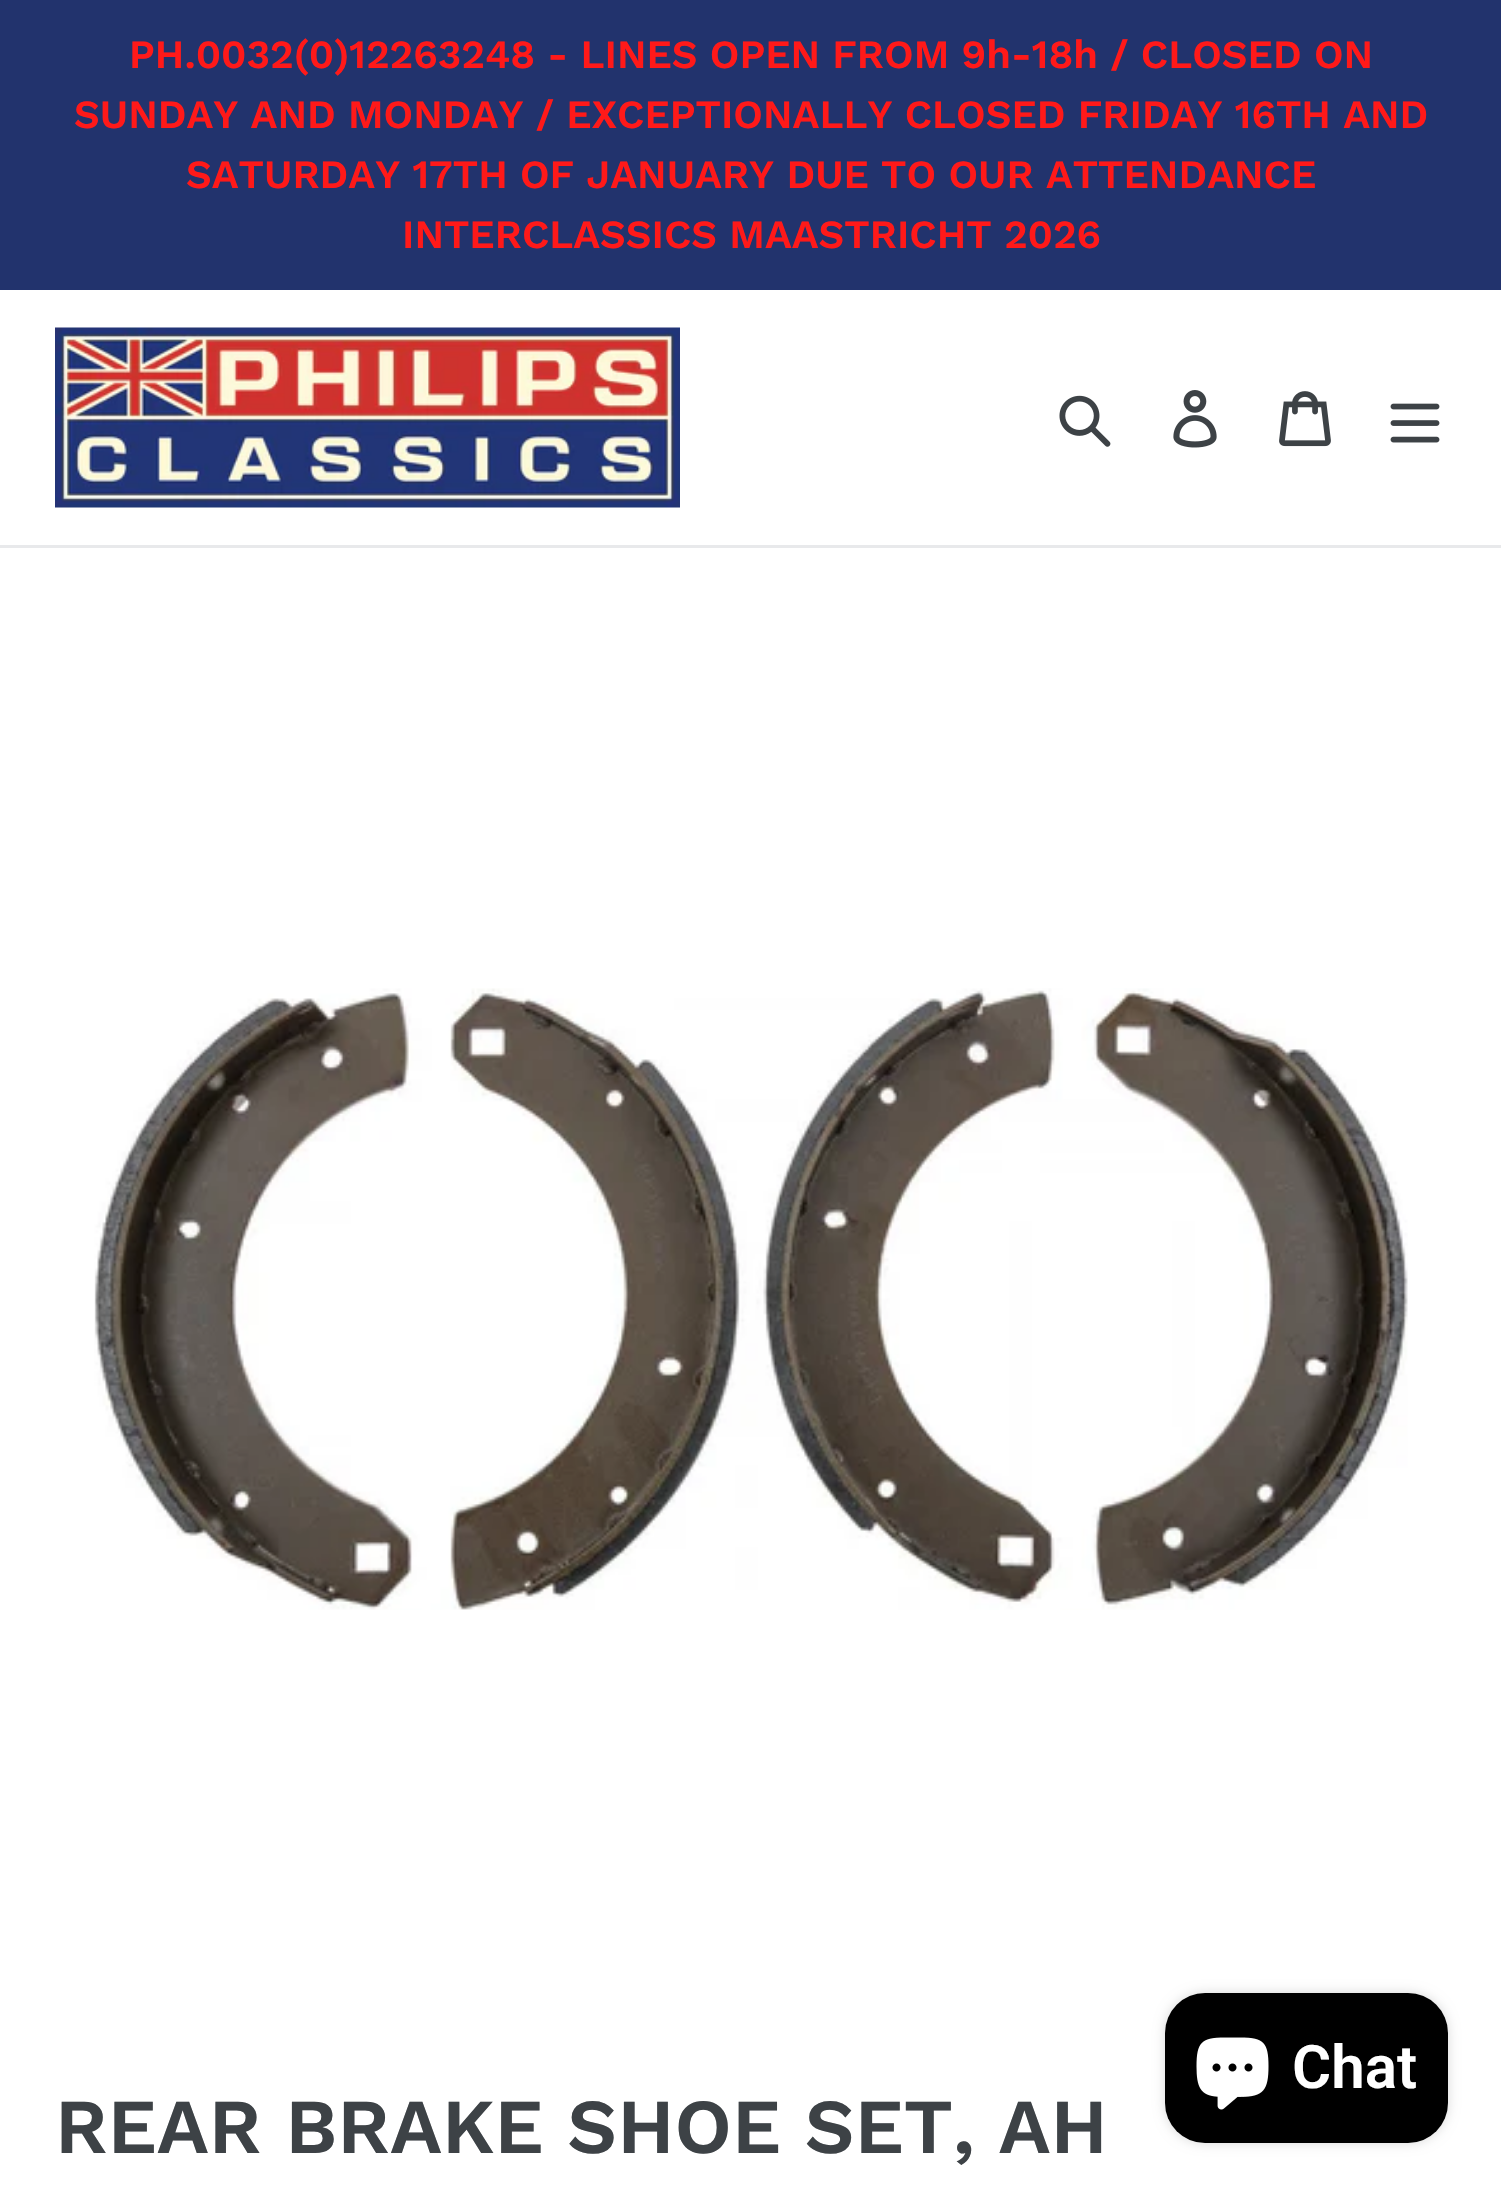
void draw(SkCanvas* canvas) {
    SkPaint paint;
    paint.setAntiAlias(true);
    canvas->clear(0xFFFFFFFF);
    paint.setColor(0xFF22336D);
    canvas->drawRect(SkRect::MakeXYWH(0, 0, 1501, 290), paint);
    SkFont font1(fontMgr->matchFamilyStyle("Work Sans", SkFontStyle(600, SkFontStyle::kNormal_Width, SkFontStyle::kUpright_Slant)), 40);
    font1.setSubpixel(true);
    paint.setColor(0xFFFF1919);
    canvas->drawString("PH.0032(0)12263248 - LINES OPEN FROM 9h-18h / CLOSED ON", 129, 68, font1, paint);
    canvas->drawString("SUNDAY AND MONDAY / EXCEPTIONALLY CLOSED FRIDAY 16TH AND", 74, 128, font1, paint);
    canvas->drawString("SATURDAY 17TH OF JANUARY DUE TO OUR ATTENDANCE", 186, 188, font1, paint);
    canvas->drawString("INTERCLASSICS MAASTRICHT 2026", 402, 248, font1, paint);
    paint.setColor(0xFFE8E9EB);
    canvas->drawRect(SkRect::MakeXYWH(0, 545, 1501, 3), paint);
    canvas->drawImageRect(SkImages::DeferredFromEncodedData(SkData::MakeFromFileName("img1.png")), SkRect::MakeXYWH(55, 327, 625, 181), SkSamplingOptions());
    canvas->drawImageRect(SkImages::DeferredFromEncodedData(SkData::MakeFromFileName("img2.png")), SkRect::MakeXYWH(1059, 395, 52, 52), SkSamplingOptions());
    canvas->drawImageRect(SkImages::DeferredFromEncodedData(SkData::MakeFromFileName("img3.png")), SkRect::MakeXYWH(1173, 390, 44, 58), SkSamplingOptions());
    canvas->drawImageRect(SkImages::DeferredFromEncodedData(SkData::MakeFromFileName("img4.png")), SkRect::MakeXYWH(1279, 391, 52, 56), SkSamplingOptions());
    canvas->drawImageRect(SkImages::DeferredFromEncodedData(SkData::MakeFromFileName("img5.png")), SkRect::MakeXYWH(1390, 403, 50, 40), SkSamplingOptions());
    paint.setColor(0x26000000);
    paint.setMaskFilter(SkMaskFilter::MakeBlur(kNormal_SkBlurStyle, 6));
    canvas->drawRoundRect(SkRect::MakeXYWH(1165, 1993, 283, 150), 40, 40, paint);
    paint.setMaskFilter(nullptr);
    paint.setColor(0xFF000000);
    canvas->drawRoundRect(SkRect::MakeXYWH(1165, 1993, 283, 150), 40, 40, paint);
    canvas->drawImageRect(SkImages::DeferredFromEncodedData(SkData::MakeFromFileName("img6.png")), SkRect::MakeXYWH(1196, 2037, 73, 73), SkSamplingOptions());
    SkFont font2(fontMgr->matchFamilyStyle("Roboto", SkFontStyle(600, SkFontStyle::kNormal_Width, SkFontStyle::kUpright_Slant)), 60);
    font2.setSubpixel(true);
    paint.setColor(0xFFFFFFFF);
    canvas->drawString("Chat", 1292, 2088, font2, paint);
    canvas->drawImageRect(SkImages::DeferredFromEncodedData(SkData::MakeFromFileName("img7.png")), SkRect::MakeXYWH(94, 988, 1314, 622), SkSamplingOptions());
    SkFont font3(fontMgr->matchFamilyStyle("Work Sans", SkFontStyle(600, SkFontStyle::kNormal_Width, SkFontStyle::kUpright_Slant)), 77.5f);
    font3.setSubpixel(true);
    paint.setColor(0xFF3D4246);
    canvas->drawString("REAR BRAKE SHOE SET, AH", 55, 2153, font3, paint);
}
